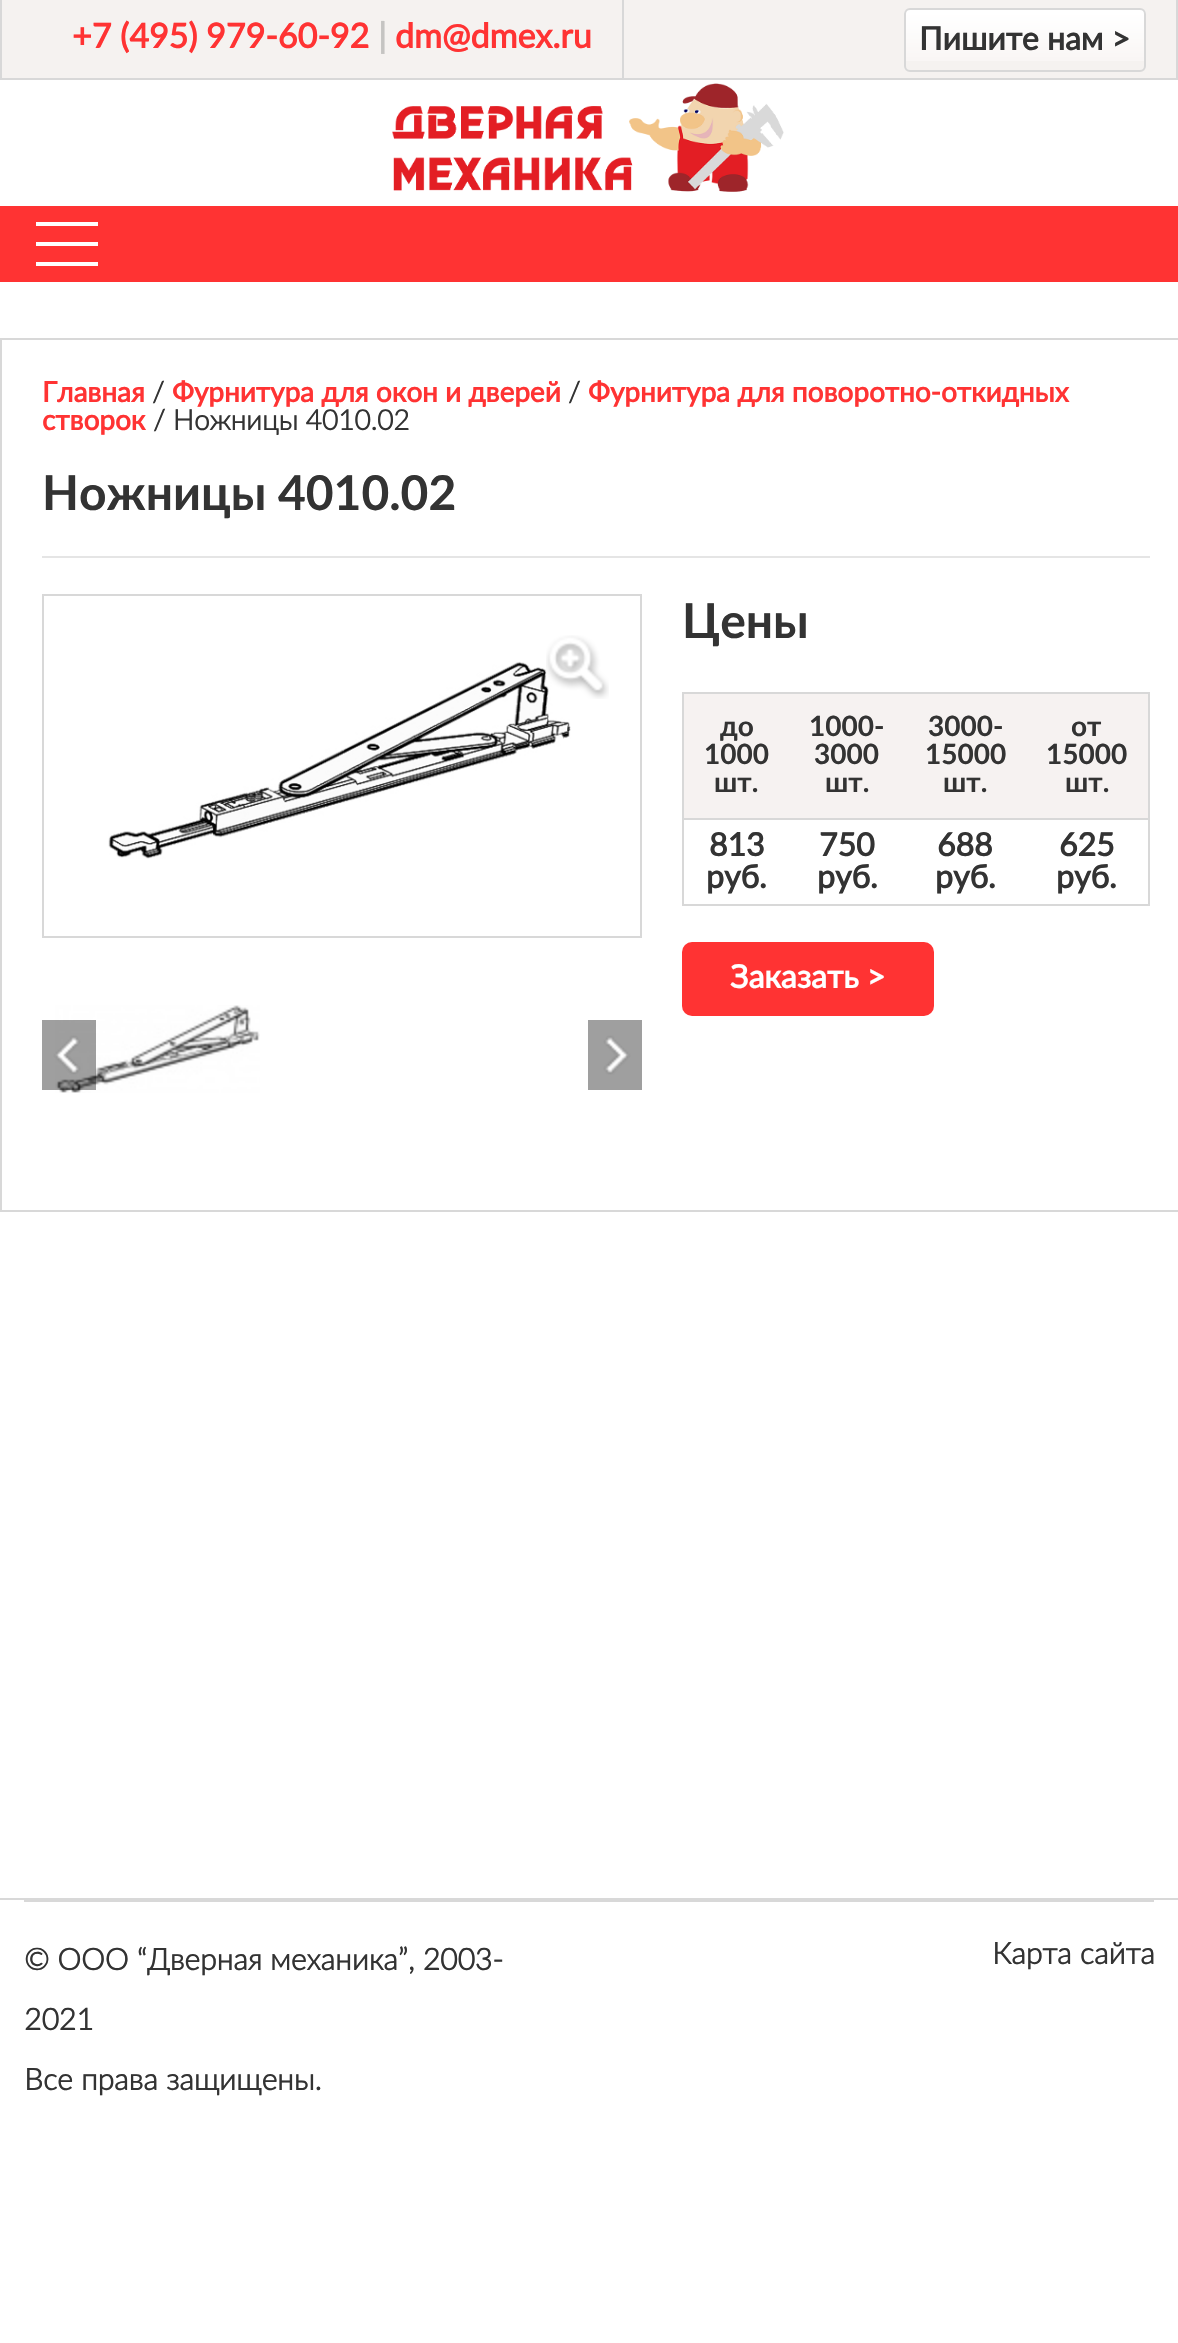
void draw(SkCanvas* canvas) {
    SkPaint paint;
    paint.setAntiAlias(true);
    canvas->clear(0xFFFFFFFF);
    paint.setColor(0xFFF5F2F0);
    canvas->drawRect(SkRect::MakeXYWH(2, 0, 1174, 78), paint);
    paint.setColor(0xFFD8D8D8);
    canvas->drawRect(SkRect::MakeXYWH(0, 78, 1178, 2), paint);
    canvas->drawRect(SkRect::MakeXYWH(1176, 0, 2, 78), paint);
    canvas->drawRect(SkRect::MakeXYWH(0, 0, 2, 78), paint);
    canvas->drawRect(SkRect::MakeXYWH(622, 0, 2, 78), paint);
    SkFont font1(fontMgr->matchFamilyStyle("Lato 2", SkFontStyle::Bold()), 34);
    font1.setSubpixel(true);
    paint.setColor(0xFFFF3333);
    canvas->drawString("+7 (495) 979-60-92", 72, 48, font1, paint);
    paint.setColor(0xFFC5C4C2);
    canvas->drawString("|", 378, 48, font1, paint);
    paint.setColor(0xFFFF3333);
    canvas->drawString("dm@dmex.ru", 395, 48, font1, paint);
    canvas->drawImageRect(SkImages::DeferredFromEncodedData(SkData::MakeFromFileName("img1.png")), SkRect::MakeXYWH(904, 10, 242, 51), SkSamplingOptions());
    paint.setStyle(SkPaint::kStroke_Style);
    paint.setStrokeWidth(2);
    paint.setColor(0xFFD8D8D8);
    canvas->drawRoundRect(SkRect::MakeXYWH(905, 9, 240, 62), 5, 5, paint);
    SkFont font2(fontMgr->matchFamilyStyle("Lato 2", SkFontStyle::Bold()), 32);
    font2.setSubpixel(true);
    paint.setStyle(SkPaint::kFill_Style);
    paint.setColor(0xFF333333);
    canvas->drawString("Пишите нам >", 919, 50, font2, paint);
    canvas->drawImageRect(SkImages::DeferredFromEncodedData(SkData::MakeFromFileName("img2.png")), SkRect::MakeXYWH(392, 83, 392, 109), SkSamplingOptions());
    paint.setColor(0xFFFF3333);
    canvas->drawRect(SkRect::MakeXYWH(0, 206, 1178, 76), paint);
    paint.setColor(0xFFFFFFFF);
    canvas->drawRect(SkRect::MakeXYWH(36, 242, 62, 4), paint);
    canvas->drawRect(SkRect::MakeXYWH(36, 222, 62, 4), paint);
    canvas->drawRect(SkRect::MakeXYWH(36, 262, 62, 4), paint);
    paint.setStyle(SkPaint::kStroke_Style);
    paint.setColor(0xFFD8D8D8);
    canvas->drawRect(SkRect::MakeXYWH(1, 339, 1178, 872), paint);
    SkFont font3(fontMgr->matchFamilyStyle("Lato 2", SkFontStyle::Bold()), 28);
    font3.setSubpixel(true);
    paint.setStyle(SkPaint::kFill_Style);
    paint.setColor(0xFFFF3333);
    canvas->drawString("Главная", 42, 402, font3, paint);
    SkFont font4(fontMgr->matchFamilyStyle("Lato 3", SkFontStyle::Bold()), 28);
    font4.setSubpixel(true);
    paint.setColor(0xFF333333);
    canvas->drawString("/", 152, 402, font4, paint);
    paint.setColor(0xFFFF3333);
    canvas->drawString("Фурнитура для окон и дверей", 172, 402, font3, paint);
    paint.setColor(0xFF333333);
    canvas->drawString("/", 568, 402, font4, paint);
    paint.setColor(0xFFFF3333);
    canvas->drawString("Фурнитура для поворотно-откидных", 588, 402, font3, paint);
    canvas->drawString("створок", 42, 430, font3, paint);
    paint.setColor(0xFF333333);
    canvas->drawString("/ Ножницы 4010.02", 153, 430, font4, paint);
    paint.setColor(0xFFE5E5E5);
    canvas->drawRect(SkRect::MakeXYWH(42, 556, 1108, 2), paint);
    SkFont font5(fontMgr->matchFamilyStyle("Lato", SkFontStyle::Bold()), 48);
    font5.setSubpixel(true);
    paint.setColor(0xFF333333);
    canvas->drawString("Ножницы 4010.02", 42, 510, font5, paint);
    paint.setStyle(SkPaint::kStroke_Style);
    paint.setColor(0xFFD8D8D8);
    canvas->drawRect(SkRect::MakeXYWH(43, 595, 598, 342), paint);
    canvas->drawImageRect(SkImages::DeferredFromEncodedData(SkData::MakeFromFileName("img3.png")), SkRect::MakeXYWH(108, 661, 463, 198), SkSamplingOptions());
    canvas->drawImageRect(SkImages::DeferredFromEncodedData(SkData::MakeFromFileName("img4.png")), SkRect::MakeXYWH(546, 635, 63, 64), SkSamplingOptions());
    canvas->drawImageRect(SkImages::DeferredFromEncodedData(SkData::MakeFromFileName("img5.png")), SkRect::MakeXYWH(55, 1005, 205, 88), SkSamplingOptions());
    canvas->drawImageRect(SkImages::DeferredFromEncodedData(SkData::MakeFromFileName("img6.png")), SkRect::MakeXYWH(42, 1020, 54, 70), SkSamplingOptions());
    canvas->drawImageRect(SkImages::DeferredFromEncodedData(SkData::MakeFromFileName("img7.png")), SkRect::MakeXYWH(588, 1020, 54, 70), SkSamplingOptions());
    paint.setStyle(SkPaint::kFill_Style);
    paint.setColor(0xFF333333);
    canvas->drawString("Цены", 682, 638, font5, paint);
    paint.setColor(0xFFD8D8D8);
    canvas->drawRect(SkRect::MakeXYWH(682, 692, 468, 2), paint);
    canvas->drawRect(SkRect::MakeXYWH(682, 818, 468, 2), paint);
    canvas->drawRect(SkRect::MakeXYWH(1148, 818, 2, 88), paint);
    canvas->drawRect(SkRect::MakeXYWH(1148, 692, 2, 128), paint);
    canvas->drawRect(SkRect::MakeXYWH(682, 904, 468, 2), paint);
    canvas->drawRect(SkRect::MakeXYWH(682, 818, 2, 88), paint);
    canvas->drawRect(SkRect::MakeXYWH(682, 692, 2, 128), paint);
    paint.setColor(0xFFF6F2F1);
    canvas->drawRect(SkRect::MakeXYWH(684, 694, 464, 124), paint);
    SkFont font6(fontMgr->matchFamilyStyle("Lato", SkFontStyle::Bold()), 28);
    font6.setSubpixel(true);
    paint.setColor(0xFF333333);
    canvas->drawString("до", 720, 736, font6, paint);
    canvas->drawString("1000", 704, 764, font6, paint);
    canvas->drawString("шт.", 714, 792, font6, paint);
    canvas->drawString("1000-", 809, 736, font6, paint);
    canvas->drawString("3000", 814, 764, font6, paint);
    canvas->drawString("шт.", 825, 792, font6, paint);
    canvas->drawString("3000-", 928, 736, font6, paint);
    canvas->drawString("15000", 925, 764, font6, paint);
    canvas->drawString("шт.", 943, 792, font6, paint);
    canvas->drawString("от", 1071, 736, font6, paint);
    canvas->drawString("15000", 1046, 764, font6, paint);
    canvas->drawString("шт.", 1065, 792, font6, paint);
    canvas->drawString("813", 709, 856, font2, paint);
    canvas->drawString("руб.", 706, 888, font2, paint);
    canvas->drawString("750", 819, 856, font2, paint);
    canvas->drawString("руб.", 817, 888, font2, paint);
    canvas->drawString("688", 937, 856, font2, paint);
    canvas->drawString("руб.", 935, 888, font2, paint);
    canvas->drawString("625", 1059, 856, font2, paint);
    canvas->drawString("руб.", 1056, 888, font2, paint);
    paint.setColor(0xFFFF3333);
    canvas->drawRoundRect(SkRect::MakeXYWH(682, 942, 252, 74), 10, 10, paint);
    paint.setColor(0xFFFFFFFF);
    canvas->drawString("Заказать >", 730, 988, font2, paint);
    paint.setColor(0xFFD8D8D8);
    canvas->drawRect(SkRect::MakeXYWH(0, 1898, 1178, 2), paint);
    canvas->drawRect(SkRect::MakeXYWH(24, 1900, 1130, 2), paint);
    SkFont font7(fontMgr->matchFamilyStyle("Lato 3", SkFontStyle::Bold()), 30);
    font7.setSubpixel(true);
    paint.setColor(0xFF333333);
    canvas->drawString("© ООО “Дверная механика”, 2003-", 24, 1970, font7, paint);
    canvas->drawString("2021", 24, 2030, font7, paint);
    canvas->drawString("Все права защищены.", 24, 2090, font7, paint);
    canvas->drawString("Карта сайта", 992, 1964, font7, paint);
}
